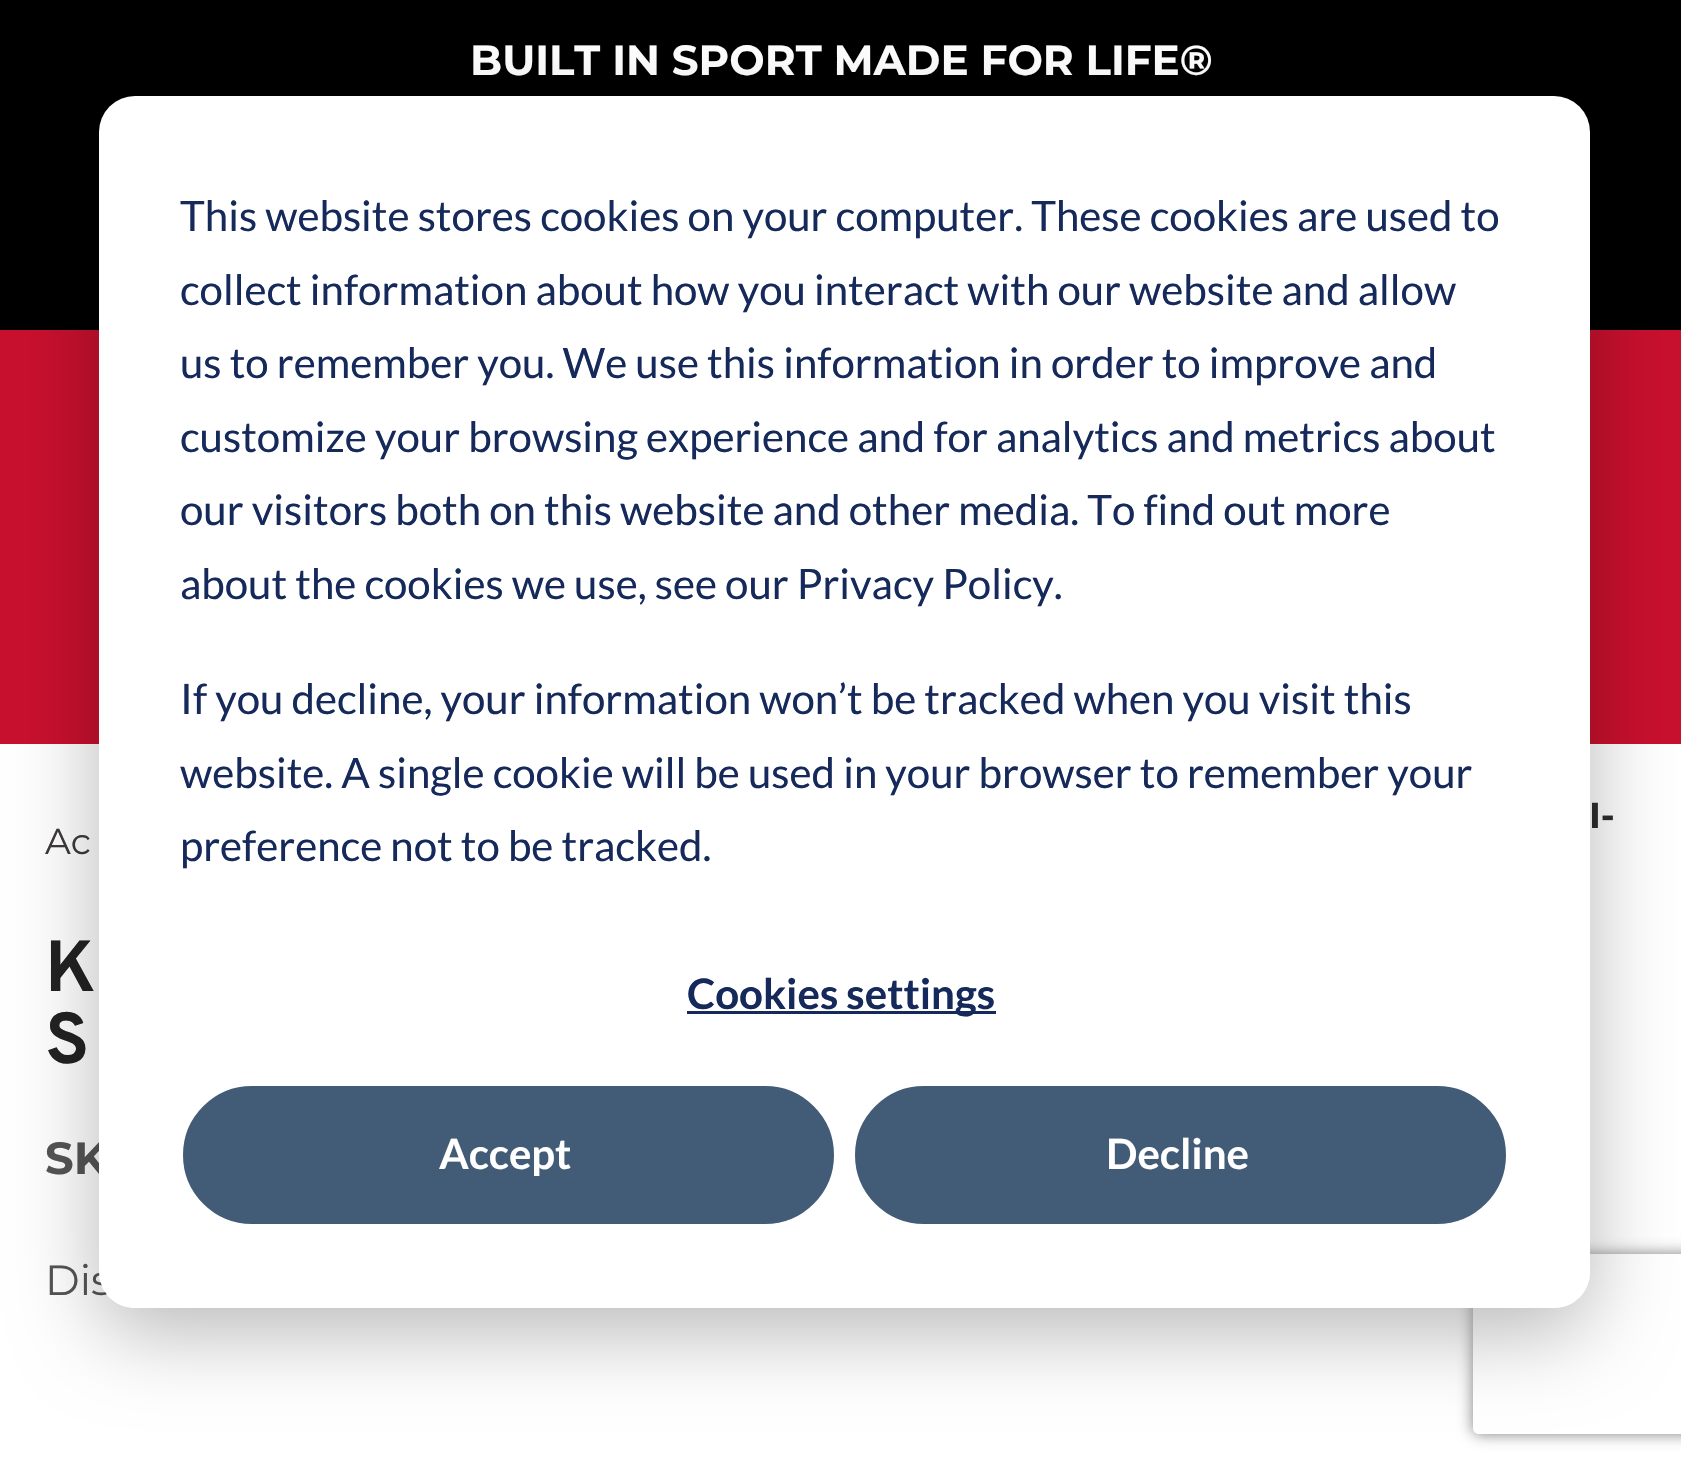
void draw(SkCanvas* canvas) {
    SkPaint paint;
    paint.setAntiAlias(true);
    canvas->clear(0xFFFFFFFF);
    paint.setColor(0xFF000000);
    canvas->drawRect(SkRect::MakeXYWH(0, 0, 1681, 330), paint);
    SkFont font1(fontMgr->matchFamilyStyle("Montserrat", SkFontStyle::Bold()), 42);
    font1.setSubpixel(true);
    paint.setColor(0xFFFFFFFF);
    canvas->drawString("BUILT IN SPORT MADE FOR LIFE®", 470, 75, font1, paint);
    paint.setColor(0xFFC8102E);
    canvas->drawRect(SkRect::MakeXYWH(0, 330, 1681, 414), paint);
    SkFont font2(fontMgr->matchFamilyStyle("Montserrat", SkFontStyle::Bold()), 36);
    font2.setSubpixel(true);
    paint.setColor(0xFF2D2D2D);
    canvas->drawString("I-", 1589, 828, font2, paint);
    SkFont font3(fontMgr->matchFamilyStyle("Montserrat", SkFontStyle::Normal()), 36);
    font3.setSubpixel(true);
    paint.setColor(0xFF3E3A3A);
    canvas->drawString("Ac", 45, 854, font3, paint);
    SkFont font4(fontMgr->matchFamilyStyle("Overpass", SkFontStyle::Bold()), 72);
    font4.setSubpixel(true);
    paint.setColor(0xFF222222);
    canvas->drawString("K", 45, 991, font4, paint);
    canvas->drawString("S", 45, 1063, font4, paint);
    SkFont font5(fontMgr->matchFamilyStyle("Montserrat", SkFontStyle::Bold()), 45);
    font5.setSubpixel(true);
    paint.setColor(0xFF555555);
    canvas->drawString("SK", 45, 1174, font5, paint);
    SkFont font6(fontMgr->matchFamilyStyle("Montserrat", SkFontStyle::Normal()), 42);
    font6.setSubpixel(true);
    canvas->drawString("Dis", 45, 1295, font6, paint);
    canvas->save();
    canvas->clipPath(SkPathBuilder(SkPathFillType::kEvenOdd).moveTo(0, 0).lineTo(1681, 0).lineTo(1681, 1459).lineTo(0, 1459).close().moveTo(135, 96).lineTo(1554, 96).cubicTo(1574, 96, 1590, 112, 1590, 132).lineTo(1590, 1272).cubicTo(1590, 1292, 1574, 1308, 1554, 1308).lineTo(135, 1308).cubicTo(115, 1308, 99, 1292, 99, 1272).lineTo(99, 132).cubicTo(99, 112, 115, 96, 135, 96).close().detach(), true);
    paint.setColor(0x47000000);
    paint.setMaskFilter(SkMaskFilter::MakeBlur(kNormal_SkBlurStyle, 42));
    canvas->drawRoundRect(SkRect::MakeXYWH(99, 120, 1491, 1212), 36, 36, paint);
    paint.setMaskFilter(nullptr);
    canvas->restore();
    canvas->save();
    canvas->clipPath(SkPathBuilder(SkPathFillType::kEvenOdd).moveTo(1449, 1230).lineTo(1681, 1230).lineTo(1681, 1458).lineTo(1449, 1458).close().moveTo(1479, 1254).lineTo(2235, 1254).cubicTo(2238.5f, 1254, 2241, 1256.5f, 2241, 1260).lineTo(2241, 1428).cubicTo(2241, 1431.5f, 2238.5f, 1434, 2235, 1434).lineTo(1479, 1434).cubicTo(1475.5f, 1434, 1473, 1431.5f, 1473, 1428).lineTo(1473, 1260).cubicTo(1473, 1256.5f, 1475.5f, 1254, 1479, 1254).close().detach(), true);
    paint.setColor(0xFF808080);
    paint.setMaskFilter(SkMaskFilter::MakeBlur(kNormal_SkBlurStyle, 7.5f));
    canvas->drawRoundRect(SkRect::MakeXYWH(1473, 1254, 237, 180), 6, 6, paint);
    paint.setMaskFilter(nullptr);
    canvas->restore();
    paint.setColor(0xFFFFFFFF);
    canvas->drawRoundRect(SkRect::MakeXYWH(99, 96, 1491, 1212), 36, 36, paint);
    SkFont font7(fontMgr->matchFamilyStyle("Lato", SkFontStyle::Normal()), 42);
    font7.setSubpixel(true);
    paint.setColor(0xFF15295A);
    canvas->drawString("This website stores cookies on your computer. These cookies are used to", 180, 231, font7, paint);
    canvas->drawString("collect information about how you interact with our website and allow", 180, 305, font7, paint);
    canvas->drawString("us to remember you. We use this information in order to improve and", 180, 378, font7, paint);
    canvas->drawString("customize your browsing experience and for analytics and metrics about", 180, 452, font7, paint);
    canvas->drawString("our visitors both on this website and other media. To find out more", 180, 525, font7, paint);
    canvas->drawString("about the cookies we use, see our Privacy Policy.", 180, 599, font7, paint);
    canvas->drawString("If you decline, your information won’t be tracked when you visit this", 180, 714, font7, paint);
    canvas->drawString("website. A single cookie will be used in your browser to remember your", 180, 788, font7, paint);
    canvas->drawString("preference not to be tracked.", 180, 861, font7, paint);
    canvas->drawRect(SkRect::MakeXYWH(687, 1011, 309, 3), paint);
    SkFont font8(fontMgr->matchFamilyStyle("Lato", SkFontStyle::Bold()), 42);
    font8.setSubpixel(true);
    canvas->drawString("Cookies settings", 687, 1009, font8, paint);
    paint.setColor(0xFF425B76);
    canvas->drawRoundRect(SkRect::MakeXYWH(184.5f, 1087.5f, 648, 135), 67.5f, 67.5f, paint);
    paint.setStyle(SkPaint::kStroke_Style);
    paint.setStrokeWidth(3);
    canvas->drawRoundRect(SkRect::MakeXYWH(184.5f, 1087.5f, 648, 135), 67.5f, 67.5f, paint);
    paint.setStyle(SkPaint::kFill_Style);
    paint.setColor(0xFFFFFFFF);
    canvas->drawString("Accept", 439, 1169, font8, paint);
    paint.setColor(0xFF425B76);
    canvas->drawRoundRect(SkRect::MakeXYWH(856.5f, 1087.5f, 648, 135), 67.5f, 67.5f, paint);
    paint.setStyle(SkPaint::kStroke_Style);
    canvas->drawRoundRect(SkRect::MakeXYWH(856.5f, 1087.5f, 648, 135), 67.5f, 67.5f, paint);
    paint.setStyle(SkPaint::kFill_Style);
    paint.setColor(0xFFFFFFFF);
    canvas->drawString("Decline", 1106, 1169, font8, paint);
}
